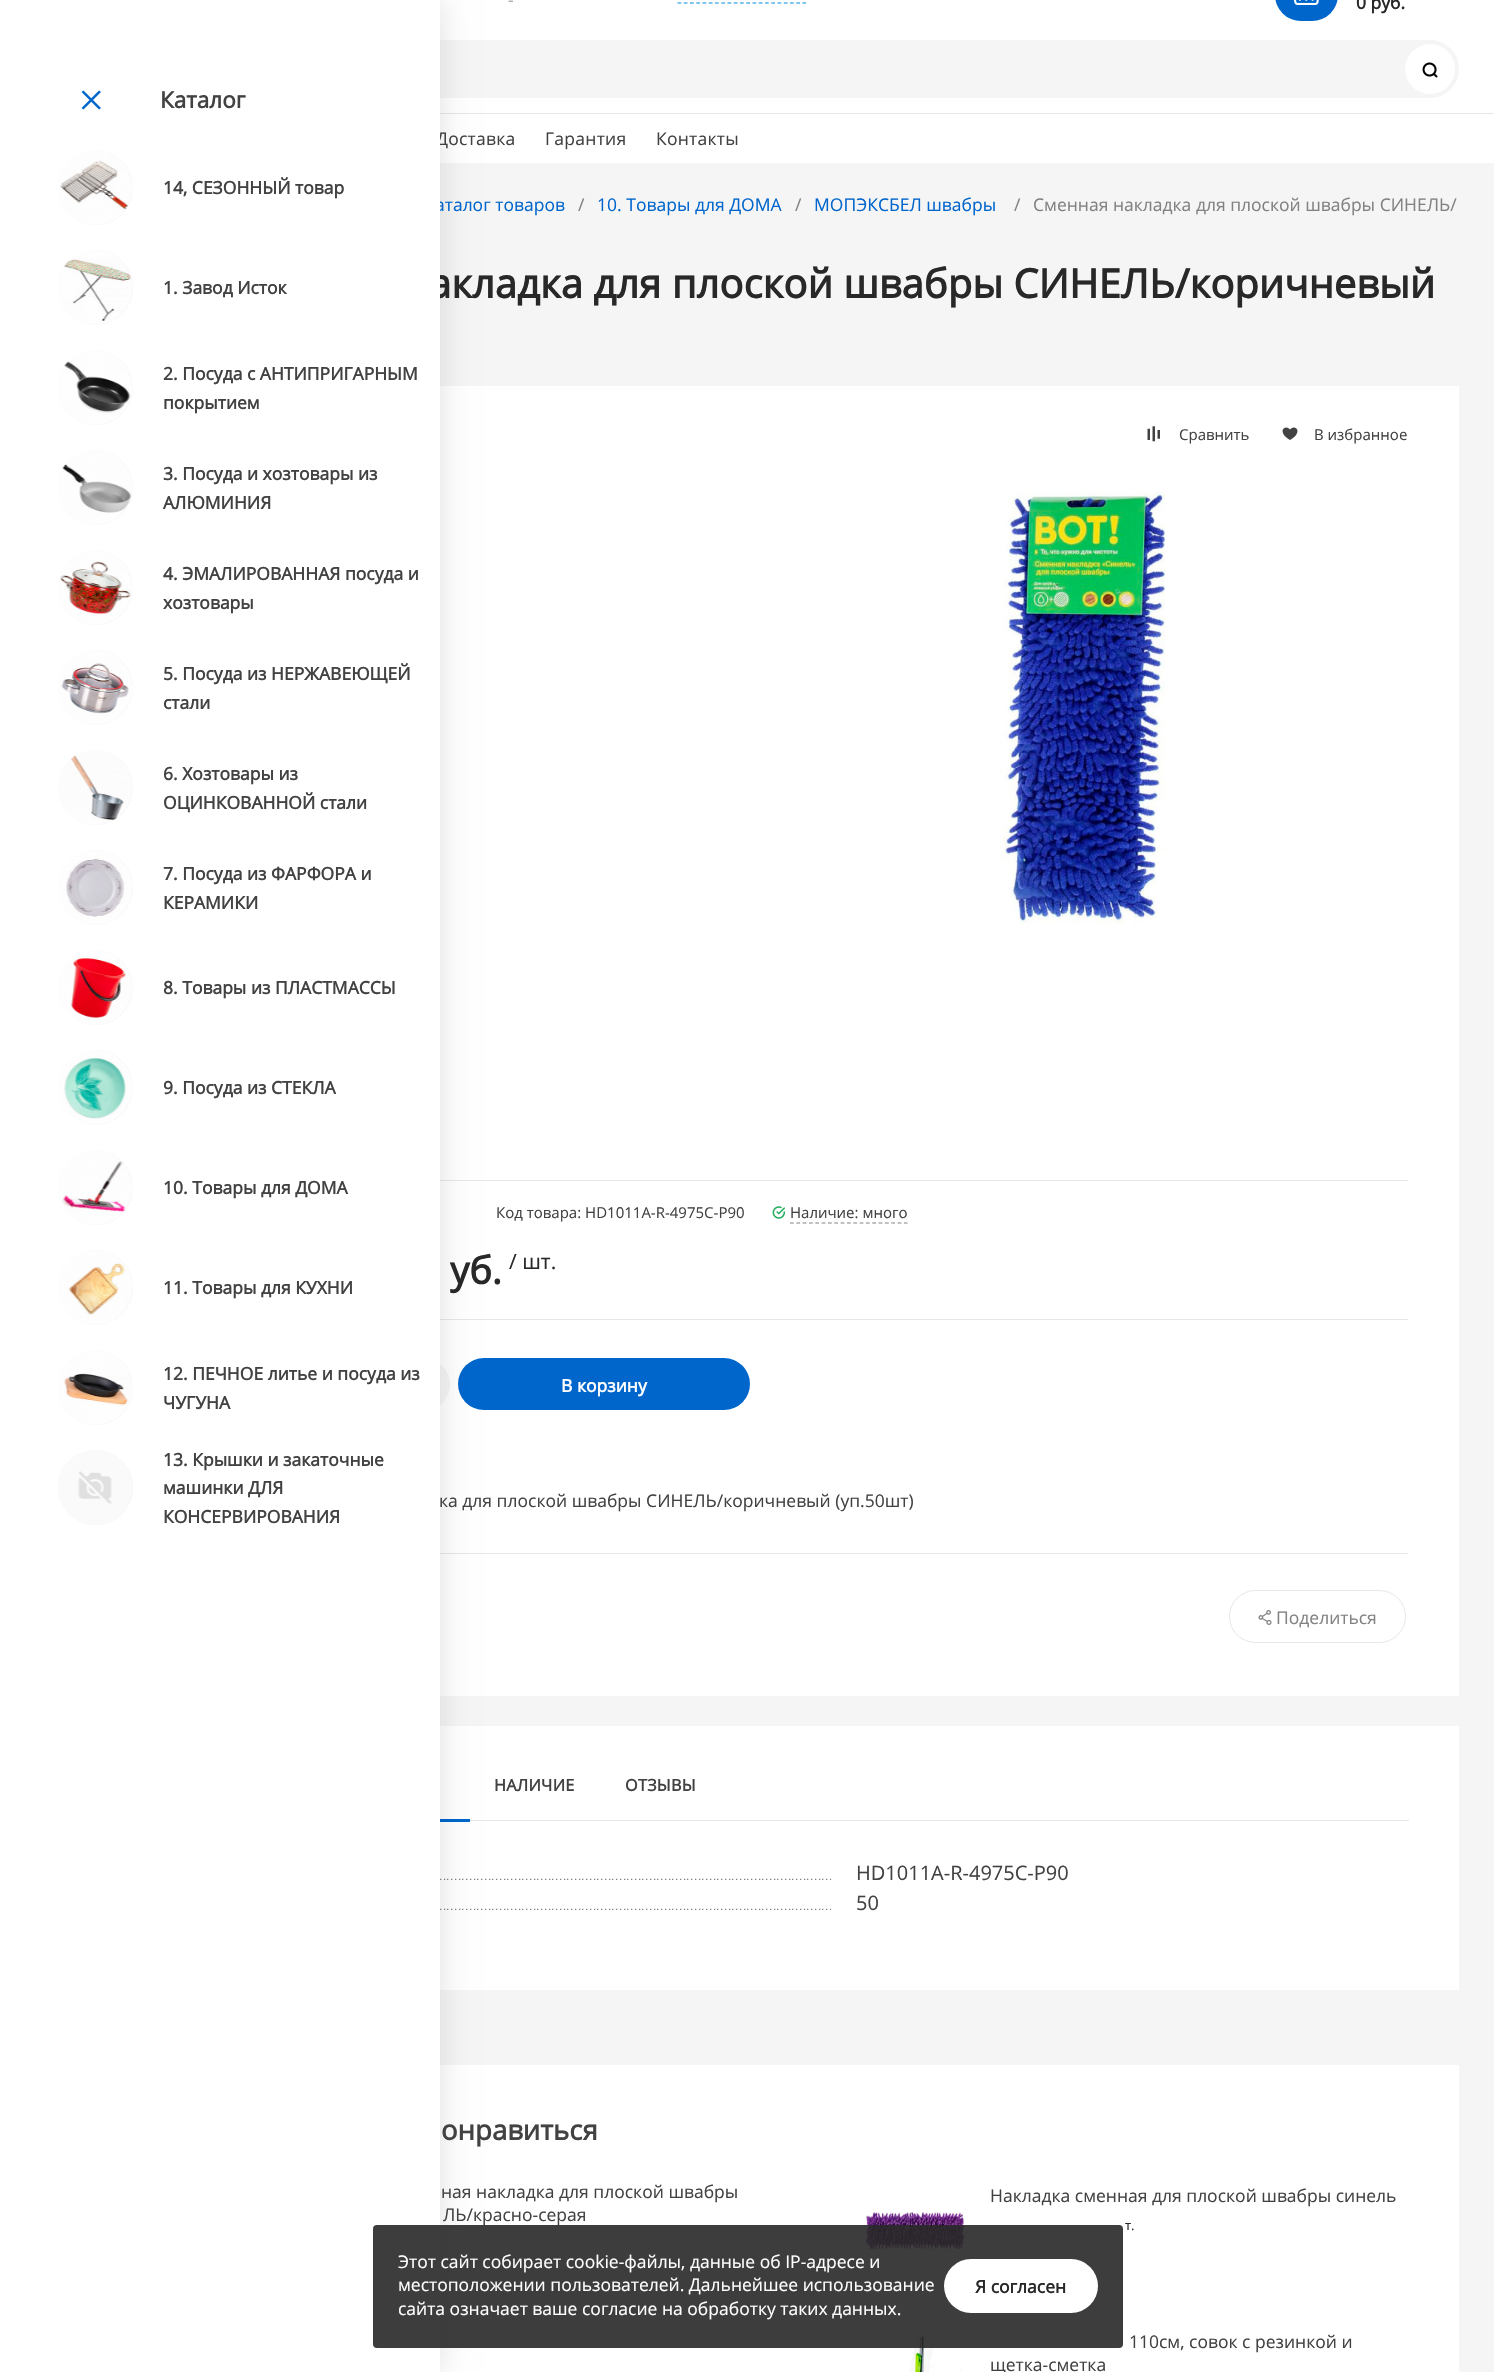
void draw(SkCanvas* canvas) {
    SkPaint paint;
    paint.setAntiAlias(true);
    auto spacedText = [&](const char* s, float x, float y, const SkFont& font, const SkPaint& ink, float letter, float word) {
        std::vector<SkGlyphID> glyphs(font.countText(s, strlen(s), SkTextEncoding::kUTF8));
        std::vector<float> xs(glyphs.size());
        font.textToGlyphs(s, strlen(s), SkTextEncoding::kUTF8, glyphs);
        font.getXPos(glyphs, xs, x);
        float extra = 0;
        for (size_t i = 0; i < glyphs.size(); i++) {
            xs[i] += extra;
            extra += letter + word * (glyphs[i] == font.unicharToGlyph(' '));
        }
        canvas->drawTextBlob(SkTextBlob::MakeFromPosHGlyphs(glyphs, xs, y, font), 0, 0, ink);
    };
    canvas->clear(0xFFF5F5F5);
    paint.setColor(0xFFFFFFFF);
    canvas->drawRect(SkRect::MakeXYWH(440, 0, 1054, 163), paint);
    paint.setColor(0xFFE7E7E7);
    canvas->drawRect(SkRect::MakeXYWH(440, 113, 1054, 1), paint);
    SkFont font1(fontMgr->matchFamilyStyle("Open Sans", SkFontStyle::Normal()), 17.5f);
    font1.setSubpixel(true);
    paint.setColor(0xFFAAAAAA);
    canvas->drawString("-", 508, 6, font1, paint);
    paint.setStyle(SkPaint::kStroke_Style);
    paint.setStrokeWidth(1.2f);
    paint.setColor(0xFF008DDE);
    paint.setPathEffect(SkDashPathEffect::Make({{3.75f, 2.5f}}, 0));
    canvas->drawPath(SkPathBuilder().moveTo(677.5f, 3).lineTo(806, 3).detach(), paint);
    paint.setPathEffect(nullptr);
    paint.setStyle(SkPaint::kFill_Style);
    paint.setColor(0xFF0066CC);
    canvas->drawRoundRect(SkRect::MakeXYWH(1275, -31, 63, 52), 31, 31, paint);
    canvas->drawImageRect(SkImages::DeferredFromEncodedData(SkData::MakeFromFileName("img1.png")), SkRect::MakeXYWH(1293, 0, 26, 5), SkSamplingOptions());
    SkFont font2(fontMgr->matchFamilyStyle("Open Sans", SkFontStyle::Bold()), 17.5f);
    font2.setSubpixel(true);
    paint.setColor(0xFF282828);
    canvas->drawString("0 руб.", 1356, 9, font2, paint);
    paint.setColor(0xFFF5F5F5);
    canvas->drawRoundRect(SkRect::MakeXYWH(221, 40, 1238, 58), 29, 29, paint);
    paint.setColor(0xFFFFFFFF);
    canvas->drawCircle(1430, 69, 25, paint);
    canvas->drawImageRect(SkImages::DeferredFromEncodedData(SkData::MakeFromFileName("img2.png")), SkRect::MakeXYWH(1422, 62, 16, 16), SkSamplingOptions());
    paint.setColor(0xFF424242);
    spacedText("Доставка", 436, 145, font1, paint, 0.25f, 0);
    spacedText("Гарантия", 545, 145, font1, paint, 0.25f, 0);
    spacedText("Контакты", 656, 145, font1, paint, 0.25f, 0);
    paint.setColor(0xFFFFFFFF);
    canvas->drawRect(SkRect::MakeXYWH(440, 386, 1019, 1310), paint);
    paint.setColor(0xFFE7E7E7);
    canvas->drawRect(SkRect::MakeXYWH(440, 1180, 968, 1), paint);
    canvas->drawRect(SkRect::MakeXYWH(440, 1319, 968, 1), paint);
    paint.setColor(0xFFF5F5F5);
    canvas->drawRoundRect(SkRect::MakeXYWH(300, 1358, 150, 53), 26.5f, 26.5f, paint);
    paint.setColor(0xFF0066CC);
    canvas->drawRoundRect(SkRect::MakeXYWH(458, 1358, 292, 52), 26, 26, paint);
    paint.setColor(0xFFE7E7E7);
    canvas->drawRect(SkRect::MakeXYWH(440, 1553, 968, 1), paint);
    paint.setColor(0xFFFFFFFF);
    canvas->drawRect(SkRect::MakeXYWH(440, 1726, 1019, 264), paint);
    paint.setColor(0xFFE7E7E7);
    canvas->drawRect(SkRect::MakeXYWH(470, 1820, 939, 1), paint);
    paint.setColor(0xFF0066CC);
    canvas->drawRect(SkRect::MakeXYWH(440, 1819, 30, 3), paint);
    canvas->drawImageRect(SkImages::DeferredFromEncodedData(SkData::MakeFromFileName("img22.png")), SkRect::MakeXYWH(440, 1878, 392, 2), SkSamplingOptions());
    canvas->drawImageRect(SkImages::DeferredFromEncodedData(SkData::MakeFromFileName("img22.png")), SkRect::MakeXYWH(440, 1908, 392, 2), SkSamplingOptions());
    paint.setColor(0xFFFFFFFF);
    canvas->drawRect(SkRect::MakeXYWH(440, 2065, 1019, 307), paint);
    paint.setColor(0x1F000000);
    paint.setMaskFilter(SkMaskFilter::MakeBlur(kNormal_SkBlurStyle, 15));
    canvas->drawRect(SkRect::MakeXYWH(0, 0, 440, 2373), paint);
    paint.setMaskFilter(nullptr);
    paint.setColor(0xFF0066CC);
    canvas->drawString("аталог товаров", 435, 211, font1, paint);
    SkFont font3(fontMgr->matchFamilyStyle("Open Sans", SkFontStyle::Bold()), 40);
    font3.setSubpixel(true);
    paint.setColor(0xFF282828);
    canvas->drawString("акладка для плоской швабры СИНЕЛЬ/коричневый", 429, 298, font3, paint);
    paint.setColor(0xFFFFFFFF);
    canvas->drawRect(SkRect::MakeXYWH(0, 0, 440, 2372), paint);
    paint.setColor(0xFF0066CC);
    canvas->drawPath(SkPathBuilder().moveTo(101, 92).lineTo(83.5f, 109.5f).lineTo(81.5f, 108).lineTo(99, 90.5f).close().detach(), paint);
    canvas->drawPath(SkPathBuilder().moveTo(99, 109.5f).lineTo(81.5f, 92).lineTo(83.5f, 90.5f).lineTo(101, 108).close().detach(), paint);
    SkFont font4(fontMgr->matchFamilyStyle("Open Sans", SkFontStyle::Bold()), 22.5f);
    font4.setSubpixel(true);
    paint.setColor(0xFF424242);
    canvas->drawString("Каталог", 160, 108, font4, paint);
    {
        const SkColor colors[] = {0xFFF5F5F5, 0xFFF0F0F0};
        const float stops[] = {0, 1};
        const SkPoint ends[] = {{95, 150}, {95, 225}};
        paint.setShader(SkGradientShader::MakeLinear(ends, colors, stops, 2, SkTileMode::kClamp));
        paint.setAlpha(255);
    }
    canvas->drawCircle(95.5f, 187.5f, 37.5f, paint);
    canvas->drawImageRect(SkImages::DeferredFromEncodedData(SkData::MakeFromFileName("img3.png")), SkRect::MakeXYWH(58, 150, 75, 75), SkSamplingOptions());
    paint.setShader(nullptr);
    paint.setColor(0xFF424242);
    canvas->drawString("14, СЕЗОННЫЙ товар", 163, 194, font2, paint);
    {
        const SkColor colors[] = {0xFFF5F5F5, 0xFFF0F0F0};
        const float stops[] = {0, 1};
        const SkPoint ends[] = {{95, 250}, {95, 325}};
        paint.setShader(SkGradientShader::MakeLinear(ends, colors, stops, 2, SkTileMode::kClamp));
        paint.setAlpha(255);
    }
    canvas->drawCircle(95.5f, 287.5f, 37.5f, paint);
    canvas->drawImageRect(SkImages::DeferredFromEncodedData(SkData::MakeFromFileName("img4.png")), SkRect::MakeXYWH(58, 250, 75, 75), SkSamplingOptions());
    paint.setShader(nullptr);
    paint.setColor(0xFF424242);
    canvas->drawString("1. Завод Исток", 163, 294, font2, paint);
    {
        const SkColor colors[] = {0xFFF5F5F5, 0xFFF0F0F0};
        const float stops[] = {0, 1};
        const SkPoint ends[] = {{95, 350}, {95, 425}};
        paint.setShader(SkGradientShader::MakeLinear(ends, colors, stops, 2, SkTileMode::kClamp));
        paint.setAlpha(255);
    }
    canvas->drawCircle(95.5f, 387.5f, 37.5f, paint);
    canvas->drawImageRect(SkImages::DeferredFromEncodedData(SkData::MakeFromFileName("img5.png")), SkRect::MakeXYWH(58, 350, 75, 75), SkSamplingOptions());
    paint.setShader(nullptr);
    paint.setColor(0xFF424242);
    canvas->drawString("2. Посуда с АНТИПРИГАРНЫМ", 163, 380, font2, paint);
    canvas->drawString("покрытием", 163, 409, font2, paint);
    {
        const SkColor colors[] = {0xFFF5F5F5, 0xFFF0F0F0};
        const float stops[] = {0, 1};
        const SkPoint ends[] = {{95, 450}, {95, 525}};
        paint.setShader(SkGradientShader::MakeLinear(ends, colors, stops, 2, SkTileMode::kClamp));
        paint.setAlpha(255);
    }
    canvas->drawCircle(95.5f, 487.5f, 37.5f, paint);
    canvas->drawImageRect(SkImages::DeferredFromEncodedData(SkData::MakeFromFileName("img6.png")), SkRect::MakeXYWH(58, 450, 75, 75), SkSamplingOptions());
    paint.setShader(nullptr);
    paint.setColor(0xFF424242);
    canvas->drawString("3. Посуда и хозтовары из", 163, 480, font2, paint);
    canvas->drawString("АЛЮМИНИЯ", 163, 509, font2, paint);
    {
        const SkColor colors[] = {0xFFF5F5F5, 0xFFF0F0F0};
        const float stops[] = {0, 1};
        const SkPoint ends[] = {{95, 550}, {95, 625}};
        paint.setShader(SkGradientShader::MakeLinear(ends, colors, stops, 2, SkTileMode::kClamp));
        paint.setAlpha(255);
    }
    canvas->drawCircle(95.5f, 587.5f, 37.5f, paint);
    canvas->drawImageRect(SkImages::DeferredFromEncodedData(SkData::MakeFromFileName("img7.png")), SkRect::MakeXYWH(58, 550, 75, 75), SkSamplingOptions());
    paint.setShader(nullptr);
    paint.setColor(0xFF424242);
    canvas->drawString("4. ЭМАЛИРОВАННАЯ посуда и", 163, 580, font2, paint);
    canvas->drawString("хозтовары", 163, 609, font2, paint);
    {
        const SkColor colors[] = {0xFFF5F5F5, 0xFFF0F0F0};
        const float stops[] = {0, 1};
        const SkPoint ends[] = {{95, 650}, {95, 725}};
        paint.setShader(SkGradientShader::MakeLinear(ends, colors, stops, 2, SkTileMode::kClamp));
        paint.setAlpha(255);
    }
    canvas->drawCircle(95.5f, 687.5f, 37.5f, paint);
    canvas->drawImageRect(SkImages::DeferredFromEncodedData(SkData::MakeFromFileName("img8.png")), SkRect::MakeXYWH(58, 650, 75, 75), SkSamplingOptions());
    paint.setShader(nullptr);
    paint.setColor(0xFF424242);
    canvas->drawString("5. Посуда из НЕРЖАВЕЮЩЕЙ", 163, 680, font2, paint);
    canvas->drawString("стали", 163, 709, font2, paint);
    {
        const SkColor colors[] = {0xFFF5F5F5, 0xFFF0F0F0};
        const float stops[] = {0, 1};
        const SkPoint ends[] = {{95, 750}, {95, 825}};
        paint.setShader(SkGradientShader::MakeLinear(ends, colors, stops, 2, SkTileMode::kClamp));
        paint.setAlpha(255);
    }
    canvas->drawCircle(95.5f, 787.5f, 37.5f, paint);
    canvas->drawImageRect(SkImages::DeferredFromEncodedData(SkData::MakeFromFileName("img9.png")), SkRect::MakeXYWH(58, 750, 75, 75), SkSamplingOptions());
    paint.setShader(nullptr);
    paint.setColor(0xFF424242);
    canvas->drawString("6. Хозтовары из", 163, 780, font2, paint);
    canvas->drawString("ОЦИНКОВАННОЙ стали", 163, 809, font2, paint);
    {
        const SkColor colors[] = {0xFFF5F5F5, 0xFFF0F0F0};
        const float stops[] = {0, 1};
        const SkPoint ends[] = {{95, 850}, {95, 925}};
        paint.setShader(SkGradientShader::MakeLinear(ends, colors, stops, 2, SkTileMode::kClamp));
        paint.setAlpha(255);
    }
    canvas->drawCircle(95.5f, 887.5f, 37.5f, paint);
    canvas->drawImageRect(SkImages::DeferredFromEncodedData(SkData::MakeFromFileName("img10.png")), SkRect::MakeXYWH(58, 850, 75, 75), SkSamplingOptions());
    paint.setShader(nullptr);
    paint.setColor(0xFF424242);
    canvas->drawString("7. Посуда из ФАРФОРА и", 163, 880, font2, paint);
    canvas->drawString("КЕРАМИКИ", 163, 909, font2, paint);
    {
        const SkColor colors[] = {0xFFF5F5F5, 0xFFF0F0F0};
        const float stops[] = {0, 1};
        const SkPoint ends[] = {{95, 950}, {95, 1025}};
        paint.setShader(SkGradientShader::MakeLinear(ends, colors, stops, 2, SkTileMode::kClamp));
        paint.setAlpha(255);
    }
    canvas->drawCircle(95.5f, 987.5f, 37.5f, paint);
    canvas->drawImageRect(SkImages::DeferredFromEncodedData(SkData::MakeFromFileName("img11.png")), SkRect::MakeXYWH(58, 950, 75, 75), SkSamplingOptions());
    paint.setShader(nullptr);
    paint.setColor(0xFF424242);
    canvas->drawString("8. Товары из ПЛАСТМАССЫ", 163, 994, font2, paint);
    {
        const SkColor colors[] = {0xFFF5F5F5, 0xFFF0F0F0};
        const float stops[] = {0, 1};
        const SkPoint ends[] = {{95, 1050}, {95, 1125}};
        paint.setShader(SkGradientShader::MakeLinear(ends, colors, stops, 2, SkTileMode::kClamp));
        paint.setAlpha(255);
    }
    canvas->drawCircle(95.5f, 1087.5f, 37.5f, paint);
    canvas->drawImageRect(SkImages::DeferredFromEncodedData(SkData::MakeFromFileName("img12.png")), SkRect::MakeXYWH(58, 1050, 75, 75), SkSamplingOptions());
    paint.setShader(nullptr);
    paint.setColor(0xFF424242);
    canvas->drawString("9. Посуда из СТЕКЛА", 163, 1094, font2, paint);
    {
        const SkColor colors[] = {0xFFF5F5F5, 0xFFF0F0F0};
        const float stops[] = {0, 1};
        const SkPoint ends[] = {{95, 1150}, {95, 1225}};
        paint.setShader(SkGradientShader::MakeLinear(ends, colors, stops, 2, SkTileMode::kClamp));
        paint.setAlpha(255);
    }
    canvas->drawCircle(95.5f, 1187.5f, 37.5f, paint);
    canvas->drawImageRect(SkImages::DeferredFromEncodedData(SkData::MakeFromFileName("img13.png")), SkRect::MakeXYWH(58, 1150, 75, 75), SkSamplingOptions());
    paint.setShader(nullptr);
    paint.setColor(0xFF424242);
    canvas->drawString("10. Товары для ДОМА", 163, 1194, font2, paint);
    {
        const SkColor colors[] = {0xFFF5F5F5, 0xFFF0F0F0};
        const float stops[] = {0, 1};
        const SkPoint ends[] = {{95, 1250}, {95, 1325}};
        paint.setShader(SkGradientShader::MakeLinear(ends, colors, stops, 2, SkTileMode::kClamp));
        paint.setAlpha(255);
    }
    canvas->drawCircle(95.5f, 1287.5f, 37.5f, paint);
    canvas->drawImageRect(SkImages::DeferredFromEncodedData(SkData::MakeFromFileName("img14.png")), SkRect::MakeXYWH(58, 1250, 75, 75), SkSamplingOptions());
    paint.setShader(nullptr);
    paint.setColor(0xFF424242);
    canvas->drawString("11. Товары для КУХНИ", 163, 1294, font2, paint);
    {
        const SkColor colors[] = {0xFFF5F5F5, 0xFFF0F0F0};
        const float stops[] = {0, 1};
        const SkPoint ends[] = {{95, 1350}, {95, 1425}};
        paint.setShader(SkGradientShader::MakeLinear(ends, colors, stops, 2, SkTileMode::kClamp));
        paint.setAlpha(255);
    }
    canvas->drawCircle(95.5f, 1387.5f, 37.5f, paint);
    canvas->drawImageRect(SkImages::DeferredFromEncodedData(SkData::MakeFromFileName("img15.png")), SkRect::MakeXYWH(58, 1350, 75, 75), SkSamplingOptions());
    paint.setShader(nullptr);
    paint.setColor(0xFF424242);
    canvas->drawString("12. ПЕЧНОЕ литье и посуда из", 163, 1380, font2, paint);
    canvas->drawString("ЧУГУНА", 163, 1409, font2, paint);
    {
        const SkColor colors[] = {0xFFF5F5F5, 0xFFF0F0F0};
        const float stops[] = {0, 1};
        const SkPoint ends[] = {{95, 1450}, {95, 1525}};
        paint.setShader(SkGradientShader::MakeLinear(ends, colors, stops, 2, SkTileMode::kClamp));
        paint.setAlpha(255);
    }
    canvas->drawCircle(95.5f, 1487.5f, 37.5f, paint);
    canvas->drawImageRect(SkImages::DeferredFromEncodedData(SkData::MakeFromFileName("img16.png")), SkRect::MakeXYWH(58, 1450, 75, 75), SkSamplingOptions());
    paint.setShader(nullptr);
    paint.setColor(0xFF424242);
    canvas->drawString("13. Крышки и закаточные", 163, 1466, font2, paint);
    canvas->drawString("машинки ДЛЯ", 163, 1494, font2, paint);
    canvas->drawString("КОНСЕРВИРОВАНИЯ", 163, 1523, font2, paint);
    paint.setColor(0xFF828282);
    canvas->drawString("/", 578, 211, font1, paint);
    paint.setColor(0xFF0066CC);
    canvas->drawString("10. Товары для ДОМА", 597, 211, font1, paint);
    paint.setColor(0xFF828282);
    canvas->drawString("/", 795, 211, font1, paint);
    paint.setColor(0xFF0066CC);
    canvas->drawString("МОПЭКСБЕЛ швабры", 814, 211, font1, paint);
    paint.setColor(0xFF828282);
    canvas->drawString("/", 1014, 211, font1, paint);
    canvas->drawString("Сменная накладка для плоской швабры СИНЕЛЬ/", 1033, 211, font1, paint);
    canvas->drawImageRect(SkImages::DeferredFromEncodedData(SkData::MakeFromFileName("img17.png")), SkRect::MakeXYWH(1147, 426, 13, 16), SkSamplingOptions());
    SkFont font5(fontMgr->matchFamilyStyle("Open Sans", SkFontStyle::Normal()), 15);
    font5.setSubpixel(true);
    paint.setColor(0xFF424242);
    canvas->drawString("Сравнить", 1179, 440, font5, paint);
    canvas->drawImageRect(SkImages::DeferredFromEncodedData(SkData::MakeFromFileName("img18.png")), SkRect::MakeXYWH(1282, 427, 16, 13), SkSamplingOptions());
    canvas->drawString("В избранное", 1314, 440, font5, paint);
    canvas->drawImageRect(SkImages::DeferredFromEncodedData(SkData::MakeFromFileName("img19.png")), SkRect::MakeXYWH(999, 490, 166, 434), SkSamplingOptions());
    canvas->drawString("Код товара: HD1011A-R-4975C-Р90", 496, 1218, font5, paint);
    canvas->drawImageRect(SkImages::DeferredFromEncodedData(SkData::MakeFromFileName("img20.png")), SkRect::MakeXYWH(772, 1206, 14, 13), SkSamplingOptions());
    canvas->drawString("Наличие: много", 790, 1218, font5, paint);
    paint.setStyle(SkPaint::kStroke_Style);
    paint.setColor(0xFF828282);
    paint.setPathEffect(SkDashPathEffect::Make({{3.75f, 2.58f}}, 0));
    canvas->drawPath(SkPathBuilder().moveTo(790, 1223).lineTo(907.5f, 1223).detach(), paint);
    paint.setPathEffect(nullptr);
    SkFont font6(fontMgr->matchFamilyStyle("Open Sans", SkFontStyle::Bold()), 38);
    font6.setSubpixel(true);
    paint.setStyle(SkPaint::kFill_Style);
    paint.setColor(0xFF282828);
    canvas->drawString("уб.", 450, 1284, font6, paint);
    SkFont font7(fontMgr->matchFamilyStyle("Open Sans", SkFontStyle::Normal()), 21);
    font7.setSubpixel(true);
    canvas->drawString("/ шт.", 509, 1269, font7, paint);
    paint.setColor(0xFFFFFFFF);
    canvas->drawString("В корзину", 561, 1392, font2, paint);
    paint.setColor(0xFF424242);
    canvas->drawString("ка для плоской швабры СИНЕЛЬ/коричневый (уп.50шт)", 439, 1507, font1, paint);
    paint.setStyle(SkPaint::kStroke_Style);
    paint.setStrokeWidth(1);
    paint.setColor(0xFFE7E7E7);
    canvas->drawRoundRect(SkRect::MakeXYWH(1229.5f, 1590.5f, 176, 52), 26, 26, paint);
    canvas->drawImageRect(SkImages::DeferredFromEncodedData(SkData::MakeFromFileName("img21.png")), SkRect::MakeXYWH(1258, 1610, 14, 15), SkSamplingOptions());
    paint.setStyle(SkPaint::kFill_Style);
    paint.setColor(0xFF828282);
    canvas->drawString("Поделиться", 1276, 1624, font1, paint);
    SkFont font8(fontMgr->matchFamilyStyle("Open Sans", SkFontStyle::Bold()), 16.25f);
    font8.setSubpixel(true);
    paint.setColor(0xFF424242);
    spacedText("НАЛИЧИЕ", 494, 1791, font8, paint, 0.25f, 0);
    spacedText("ОТЗЫВЫ", 625, 1791, font8, paint, 0.25f, 0);
    SkFont font9(fontMgr->matchFamilyStyle("Open Sans", SkFontStyle::Normal()), 20);
    font9.setSubpixel(true);
    canvas->drawString("HD1011A-R-4975C-Р90", 856, 1880, font9, paint);
    canvas->drawString("50", 856, 1910, font9, paint);
    SkFont font10(fontMgr->matchFamilyStyle("Open Sans", SkFontStyle::Bold()), 27.5f);
    font10.setSubpixel(true);
    canvas->drawString("онравиться", 441, 2140, font10, paint);
    canvas->drawString("ная накладка для плоской швабры", 441, 2198, font1, paint);
    canvas->drawString("ЛЬ/красно-серая", 443, 2221, font1, paint);
    canvas->drawImageRect(SkImages::DeferredFromEncodedData(SkData::MakeFromFileName("img23.png")), SkRect::MakeXYWH(865, 2212, 100, 40), SkSamplingOptions());
    canvas->drawString("Накладка сменная для плоской швабры синель", 990, 2202, font1, paint);
    SkFont font11(fontMgr->matchFamilyStyle("Open Sans", SkFontStyle::Normal()), 13);
    font11.setSubpixel(true);
    paint.setColor(0xFF282828);
    canvas->drawString("т.", 1125, 2230, font11, paint);
    canvas->drawImageRect(SkImages::DeferredFromEncodedData(SkData::MakeFromFileName("img24.png")), SkRect::MakeXYWH(909, 2333, 53, 39), SkSamplingOptions());
    paint.setColor(0xFF424242);
    canvas->drawString("110см, совок с резинкой и", 1129, 2348, font1, paint);
    canvas->drawString("щетка-сметка", 990, 2371, font1, paint);
    paint.setColor(0xE6282828);
    canvas->drawRoundRect(SkRect::MakeXYWH(373, 2225, 750, 123), 4, 4, paint);
    paint.setColor(0xFFFFFFFF);
    canvas->drawString("Этот сайт собирает cookie-файлы, данные об IP-адресе и", 398, 2268, font1, paint);
    canvas->drawString("местоположении пользователей. Дальнейшее использование", 398, 2291, font1, paint);
    canvas->drawString("сайта означает ваше согласие на обработку таких данных.", 398, 2315, font1, paint);
    canvas->drawRoundRect(SkRect::MakeXYWH(944, 2259, 154, 54), 27, 27, paint);
    paint.setColor(0xFF282828);
    canvas->drawString("Я согласен", 975, 2293, font2, paint);
}
